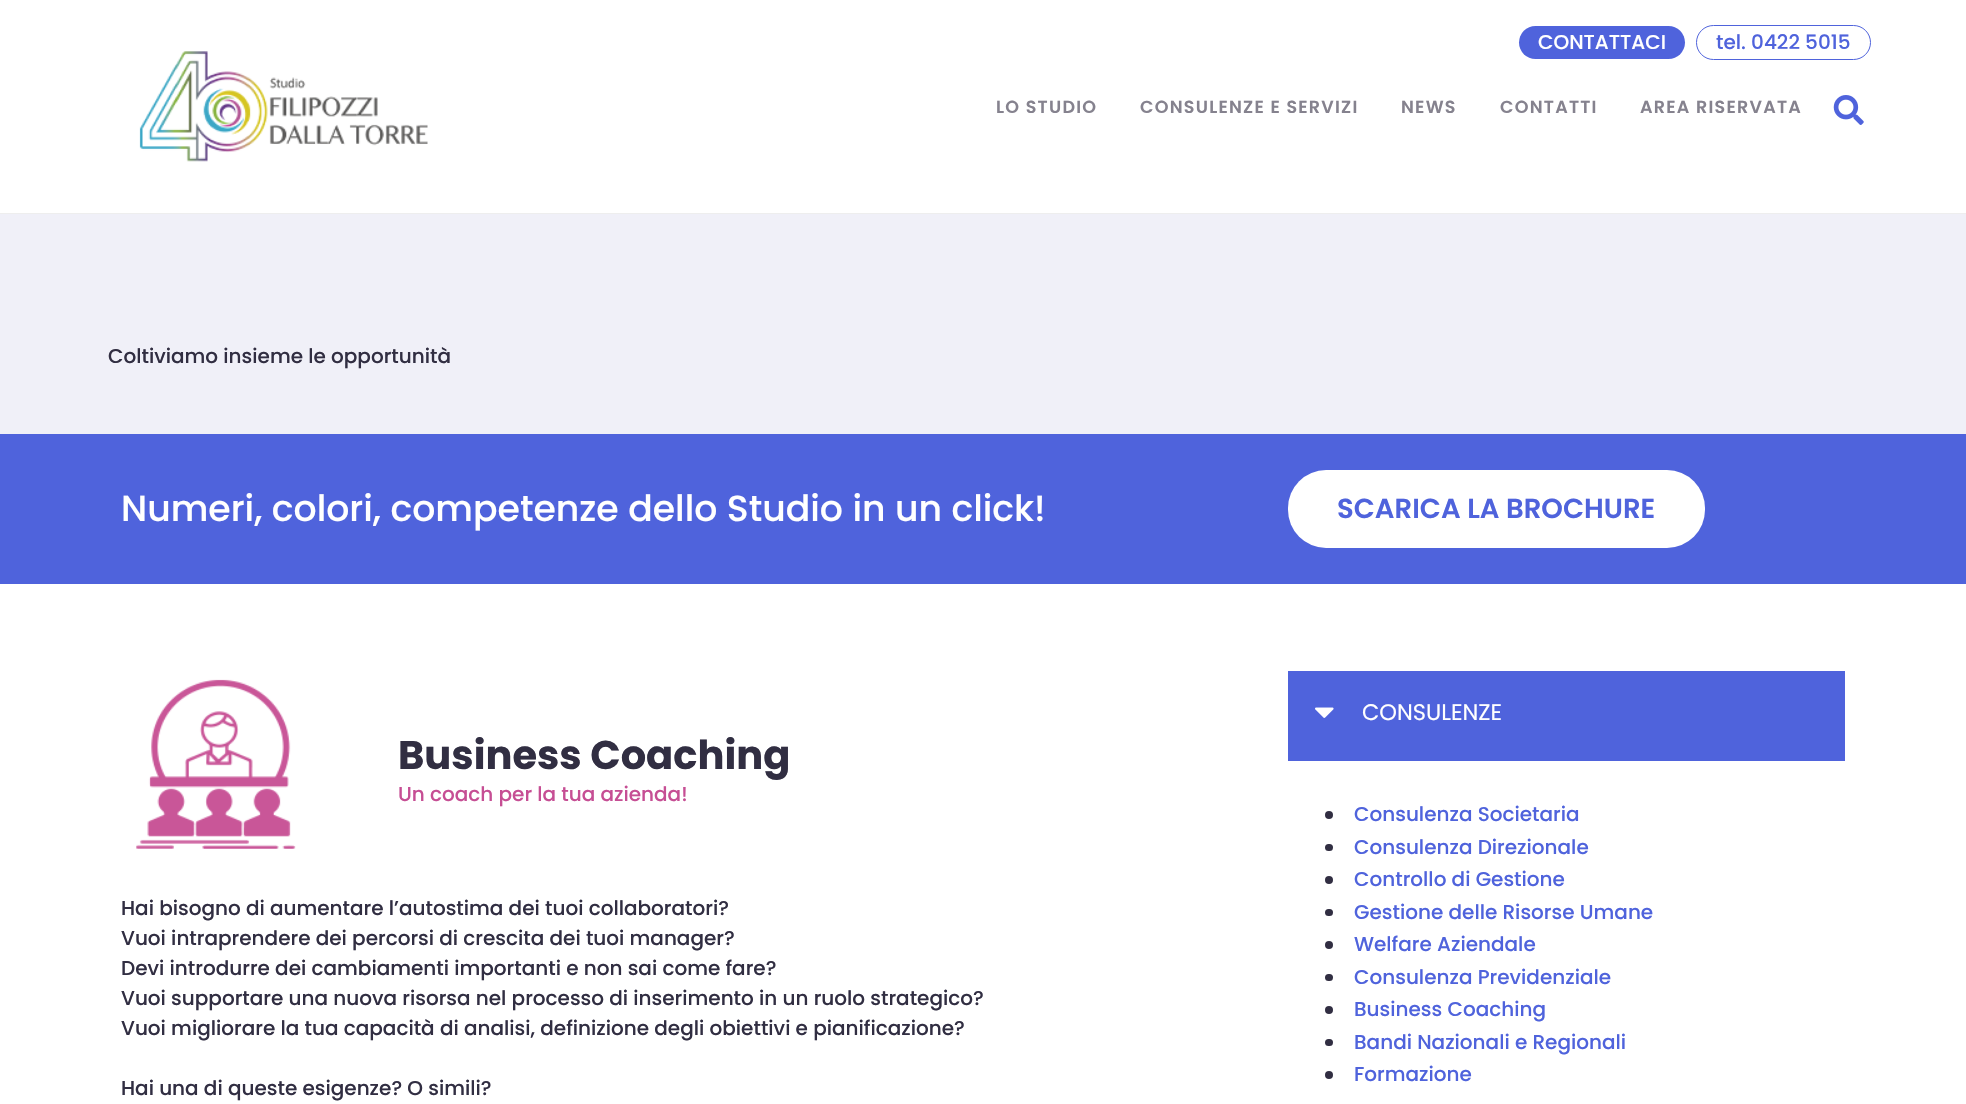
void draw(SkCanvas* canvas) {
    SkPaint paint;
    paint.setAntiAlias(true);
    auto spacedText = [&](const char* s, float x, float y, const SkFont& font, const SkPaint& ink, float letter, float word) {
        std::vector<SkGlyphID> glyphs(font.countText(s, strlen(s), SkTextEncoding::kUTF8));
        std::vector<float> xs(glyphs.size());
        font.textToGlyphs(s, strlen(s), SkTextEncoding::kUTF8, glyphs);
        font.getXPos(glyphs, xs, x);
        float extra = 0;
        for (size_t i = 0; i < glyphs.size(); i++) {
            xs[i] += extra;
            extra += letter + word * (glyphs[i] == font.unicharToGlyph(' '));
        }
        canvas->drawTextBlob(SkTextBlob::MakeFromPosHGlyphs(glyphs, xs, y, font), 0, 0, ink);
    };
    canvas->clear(0xFFFFFFFF);
    paint.setColor(0xFFEEEEEE);
    canvas->drawRect(SkRect::MakeXYWH(0, 213, 1966, 1), paint);
    paint.setColor(0xFF4F63DC);
    canvas->drawRoundRect(SkRect::MakeXYWH(1519, 26, 166, 33), 16.5f, 16.5f, paint);
    SkFont font1(fontMgr->matchFamilyStyle("Poppins", SkFontStyle(500, SkFontStyle::kNormal_Width, SkFontStyle::kUpright_Slant)), 20);
    font1.setSubpixel(true);
    paint.setColor(0xFFFFFFFF);
    canvas->drawString("CONTATTACI", 1538, 49, font1, paint);
    paint.setStyle(SkPaint::kStroke_Style);
    paint.setStrokeWidth(1);
    paint.setColor(0xFF4F63DC);
    canvas->drawRoundRect(SkRect::MakeXYWH(1696.5f, 25.5f, 174, 34), 17, 17, paint);
    paint.setStyle(SkPaint::kFill_Style);
    canvas->drawString("tel. 0422 5015", 1716, 49, font1, paint);
    canvas->drawImageRect(SkImages::DeferredFromEncodedData(SkData::MakeFromFileName("img1.png")), SkRect::MakeXYWH(1833, 95, 31, 30), SkSamplingOptions());
    canvas->drawImageRect(SkImages::DeferredFromEncodedData(SkData::MakeFromFileName("img2.png")), SkRect::MakeXYWH(139, 51, 289, 111), SkSamplingOptions());
    SkFont font2(fontMgr->matchFamilyStyle("Poppins", SkFontStyle(600, SkFontStyle::kNormal_Width, SkFontStyle::kUpright_Slant)), 17.5f);
    font2.setSubpixel(true);
    paint.setColor(0xFF85828E);
    spacedText("LO STUDIO", 996, 113, font2, paint, 1.25f, 0);
    spacedText("CONSULENZE E SERVIZI", 1140, 113, font2, paint, 1.25f, 0);
    spacedText("NEWS", 1401, 113, font2, paint, 1.25f, 0);
    spacedText("CONTATTI", 1500, 113, font2, paint, 1.25f, 0);
    spacedText("AREA RISERVATA", 1640, 113, font2, paint, 1.25f, 0);
    paint.setColor(0xFFF0F0F8);
    canvas->drawRect(SkRect::MakeXYWH(0, 214, 1966, 220), paint);
    paint.setColor(0xFF312E42);
    canvas->drawString("Coltiviamo insieme le opportunità", 108, 363, font1, paint);
    paint.setColor(0xFF4F63DC);
    canvas->drawRect(SkRect::MakeXYWH(0, 434, 1966, 150), paint);
    SkFont font3(fontMgr->matchFamilyStyle("Poppins", SkFontStyle(500, SkFontStyle::kNormal_Width, SkFontStyle::kUpright_Slant)), 36.25f);
    font3.setSubpixel(true);
    paint.setColor(0xFFFFFFFF);
    canvas->drawString("Numeri, colori, competenze dello Studio in un click!", 121, 521, font3, paint);
    canvas->drawRoundRect(SkRect::MakeXYWH(1288, 470, 417, 78), 38, 38, paint);
    SkFont font4(fontMgr->matchFamilyStyle("Poppins", SkFontStyle(600, SkFontStyle::kNormal_Width, SkFontStyle::kUpright_Slant)), 27.5f);
    font4.setSubpixel(true);
    paint.setColor(0xFF4F63DC);
    canvas->drawString("SCARICA LA BROCHURE", 1337, 518, font4, paint);
    canvas->drawImageRect(SkImages::DeferredFromEncodedData(SkData::MakeFromFileName("img3.png")), SkRect::MakeXYWH(136, 679, 160, 170), SkSamplingOptions());
    SkFont font5(fontMgr->matchFamilyStyle("Poppins", SkFontStyle::Bold()), 40);
    font5.setSubpixel(true);
    paint.setColor(0xFF312E42);
    canvas->drawString("Business Coaching", 398, 769, font5, paint);
    paint.setColor(0xFFC64E94);
    canvas->drawString("Un coach per la tua azienda!", 398, 801, font1, paint);
    paint.setColor(0xFF312E42);
    canvas->drawString("Hai bisogno di aumentare l’autostima dei tuoi collaboratori?", 121, 915, font1, paint);
    canvas->drawString("Vuoi intraprendere dei percorsi di crescita dei tuoi manager?", 121, 945, font1, paint);
    canvas->drawString("Devi introdurre dei cambiamenti importanti e non sai come fare?", 121, 975, font1, paint);
    canvas->drawString("Vuoi supportare una nuova risorsa nel processo di inserimento in un ruolo strategico?", 121, 1005, font1, paint);
    canvas->drawString("Vuoi migliorare la tua capacità di analisi, definizione degli obiettivi e pianificazione?", 121, 1035, font1, paint);
    canvas->drawString("Hai una di queste esigenze? O simili?", 121, 1095, font1, paint);
    paint.setColor(0xFF4F63DC);
    canvas->drawRect(SkRect::MakeXYWH(1288, 671, 557, 90), paint);
    canvas->drawImageRect(SkImages::DeferredFromEncodedData(SkData::MakeFromFileName("img4.png")), SkRect::MakeXYWH(1315, 707, 19, 11), SkSamplingOptions());
    SkFont font6(fontMgr->matchFamilyStyle("Poppins", SkFontStyle::Normal()), 22.5f);
    font6.setSubpixel(true);
    paint.setColor(0xFFFFFFFF);
    canvas->drawString("CONSULENZE", 1362, 720, font6, paint);
    paint.setColor(0xFF312E42);
    canvas->drawCircle(1329, 815, 4, paint);
    paint.setColor(0xFF4F63DC);
    canvas->drawString("Consulenza Societaria", 1354, 821, font1, paint);
    paint.setColor(0xFF312E42);
    canvas->drawRoundRect(SkRect::MakeXYWH(1325, 844, 8, 7), 3.5f, 3.5f, paint);
    paint.setColor(0xFF4F63DC);
    canvas->drawString("Consulenza Direzionale", 1354, 854, font1, paint);
    paint.setColor(0xFF312E42);
    canvas->drawCircle(1329, 880, 4, paint);
    paint.setColor(0xFF4F63DC);
    canvas->drawString("Controllo di Gestione", 1354, 886, font1, paint);
    paint.setColor(0xFF312E42);
    canvas->drawRoundRect(SkRect::MakeXYWH(1325, 909, 8, 7), 3.5f, 3.5f, paint);
    paint.setColor(0xFF4F63DC);
    canvas->drawString("Gestione delle Risorse Umane", 1354, 919, font1, paint);
    paint.setColor(0xFF312E42);
    canvas->drawCircle(1329, 945, 4, paint);
    paint.setColor(0xFF4F63DC);
    canvas->drawString("Welfare Aziendale", 1354, 951, font1, paint);
    paint.setColor(0xFF312E42);
    canvas->drawRoundRect(SkRect::MakeXYWH(1325, 974, 8, 7), 3.5f, 3.5f, paint);
    paint.setColor(0xFF4F63DC);
    canvas->drawString("Consulenza Previdenziale", 1354, 984, font1, paint);
    paint.setColor(0xFF312E42);
    canvas->drawCircle(1329, 1010, 4, paint);
    paint.setColor(0xFF4F63DC);
    canvas->drawString("Business Coaching", 1354, 1016, font1, paint);
    paint.setColor(0xFF312E42);
    canvas->drawRoundRect(SkRect::MakeXYWH(1325, 1039, 8, 7), 3.5f, 3.5f, paint);
    paint.setColor(0xFF4F63DC);
    canvas->drawString("Bandi Nazionali e Regionali", 1354, 1049, font1, paint);
    paint.setColor(0xFF312E42);
    canvas->drawCircle(1329, 1075, 4, paint);
    paint.setColor(0xFF4F63DC);
    canvas->drawString("Formazione", 1354, 1081, font1, paint);
}
